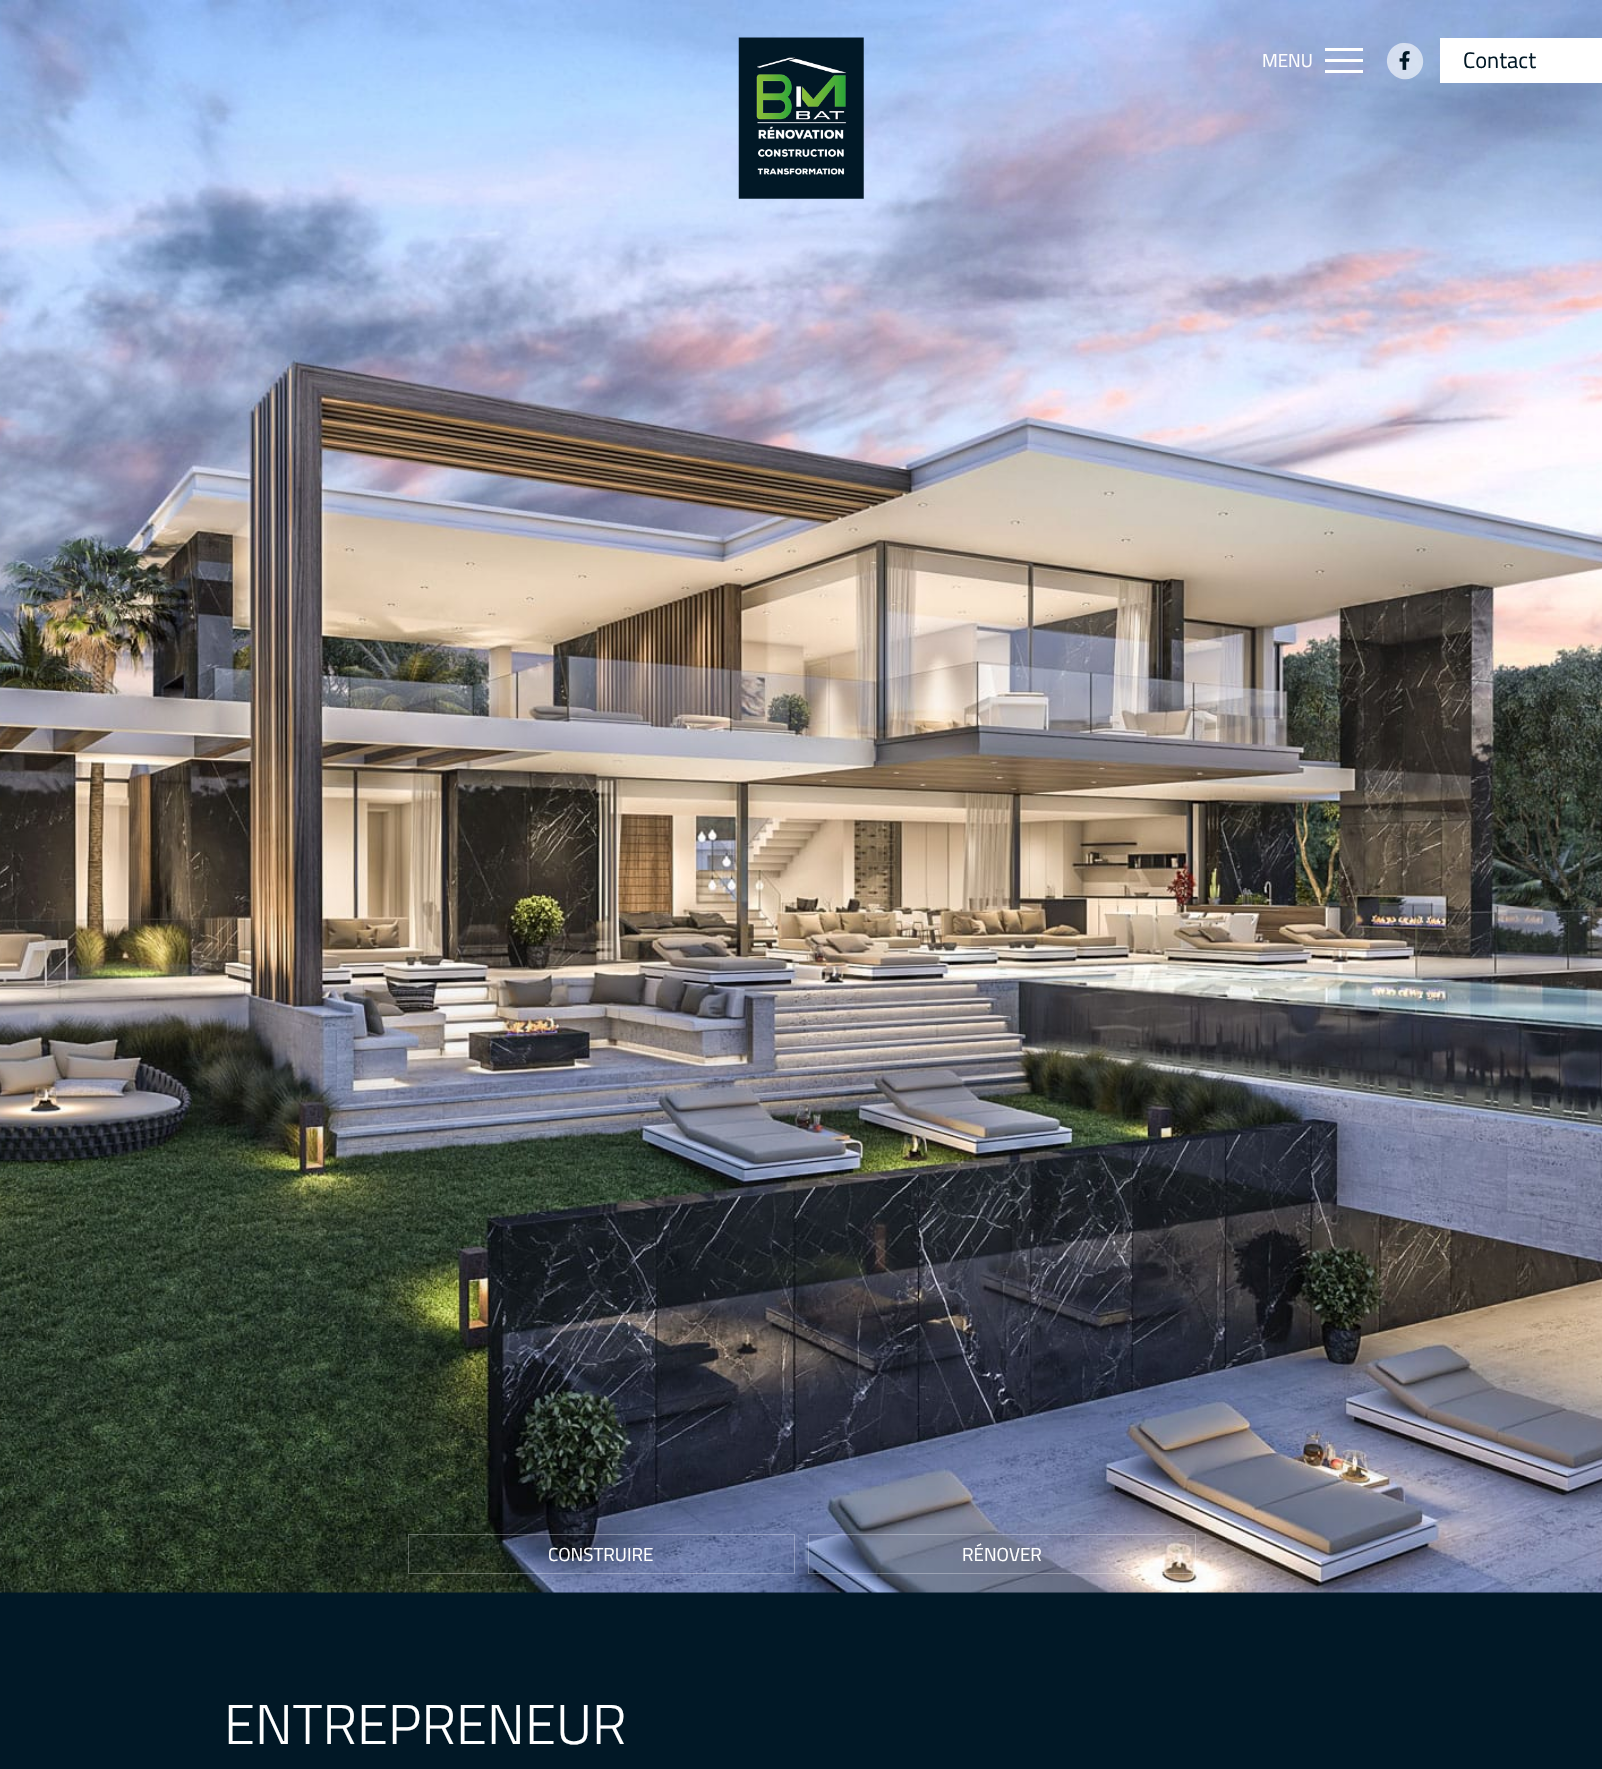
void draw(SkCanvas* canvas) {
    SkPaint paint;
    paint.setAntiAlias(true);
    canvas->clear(0xFF011826);
    canvas->drawImageRect(SkImages::DeferredFromEncodedData(SkData::MakeFromFileName("img3.png")), SkRect::MakeXYWH(0, 0, 1602, 1593), SkSamplingOptions());
    canvas->drawImageRect(SkImages::DeferredFromEncodedData(SkData::MakeFromFileName("img1.png")), SkRect::MakeXYWH(738, 37, 126, 162), SkSamplingOptions());
    SkFont font1(fontMgr->matchFamilyStyle("Titillium Web", SkFontStyle::Normal()), 18.75f);
    font1.setSubpixel(true);
    paint.setColor(0xFFFFFFFF);
    canvas->drawString("MENU", 1262, 67, font1, paint);
    canvas->drawRect(SkRect::MakeXYWH(1325, 48, 38, 3), paint);
    canvas->drawRect(SkRect::MakeXYWH(1325, 59, 38, 3), paint);
    canvas->drawRect(SkRect::MakeXYWH(1325, 70, 38, 3), paint);
    paint.setColor(0x99FFFFFF);
    canvas->drawPath(SkPathBuilder().moveTo(1392, 48).cubicTo(1395, 45, 1399, 43, 1403, 43).cubicTo(1420, 41.5f, 1430, 61.5f, 1418, 74).cubicTo(1406, 86, 1385.5f, 76, 1387, 59).cubicTo(1387.5f, 55, 1389, 51, 1392, 48).close().detach(), paint);
    canvas->drawImageRect(SkImages::DeferredFromEncodedData(SkData::MakeFromFileName("img2.png")), SkRect::MakeXYWH(1399, 51, 11, 19), SkSamplingOptions());
    paint.setColor(0xFFFFFFFF);
    canvas->drawRect(SkRect::MakeXYWH(1440, 38, 162, 45), paint);
    SkFont font2(fontMgr->matchFamilyStyle("Titillium Web", SkFontStyle::Normal()), 22.5f);
    font2.setSubpixel(true);
    paint.setColor(0xFF011826);
    canvas->drawString("Contact", 1463, 68, font2, paint);
    paint.setStyle(SkPaint::kStroke_Style);
    paint.setStrokeWidth(1);
    paint.setColor(0x4DFFFFFF);
    canvas->drawRect(SkRect::MakeXYWH(408.5f, 1534.5f, 386, 39), paint);
    paint.setStyle(SkPaint::kFill_Style);
    paint.setColor(0xFFFFFFFF);
    canvas->drawString("CONSTRUIRE", 548, 1561, font1, paint);
    paint.setStyle(SkPaint::kStroke_Style);
    paint.setColor(0x4DFFFFFF);
    canvas->drawRect(SkRect::MakeXYWH(808.5f, 1534.5f, 387, 39), paint);
    paint.setStyle(SkPaint::kFill_Style);
    paint.setColor(0xFFFFFFFF);
    canvas->drawString("RÉNOVER", 962, 1561, font1, paint);
    SkFont font3(fontMgr->matchFamilyStyle("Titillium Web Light", SkFontStyle(300, SkFontStyle::kNormal_Width, SkFontStyle::kUpright_Slant)), 56.25f);
    font3.setSubpixel(true);
    canvas->drawString("ENTREPRENEUR", 224, 1744, font3, paint);
}
